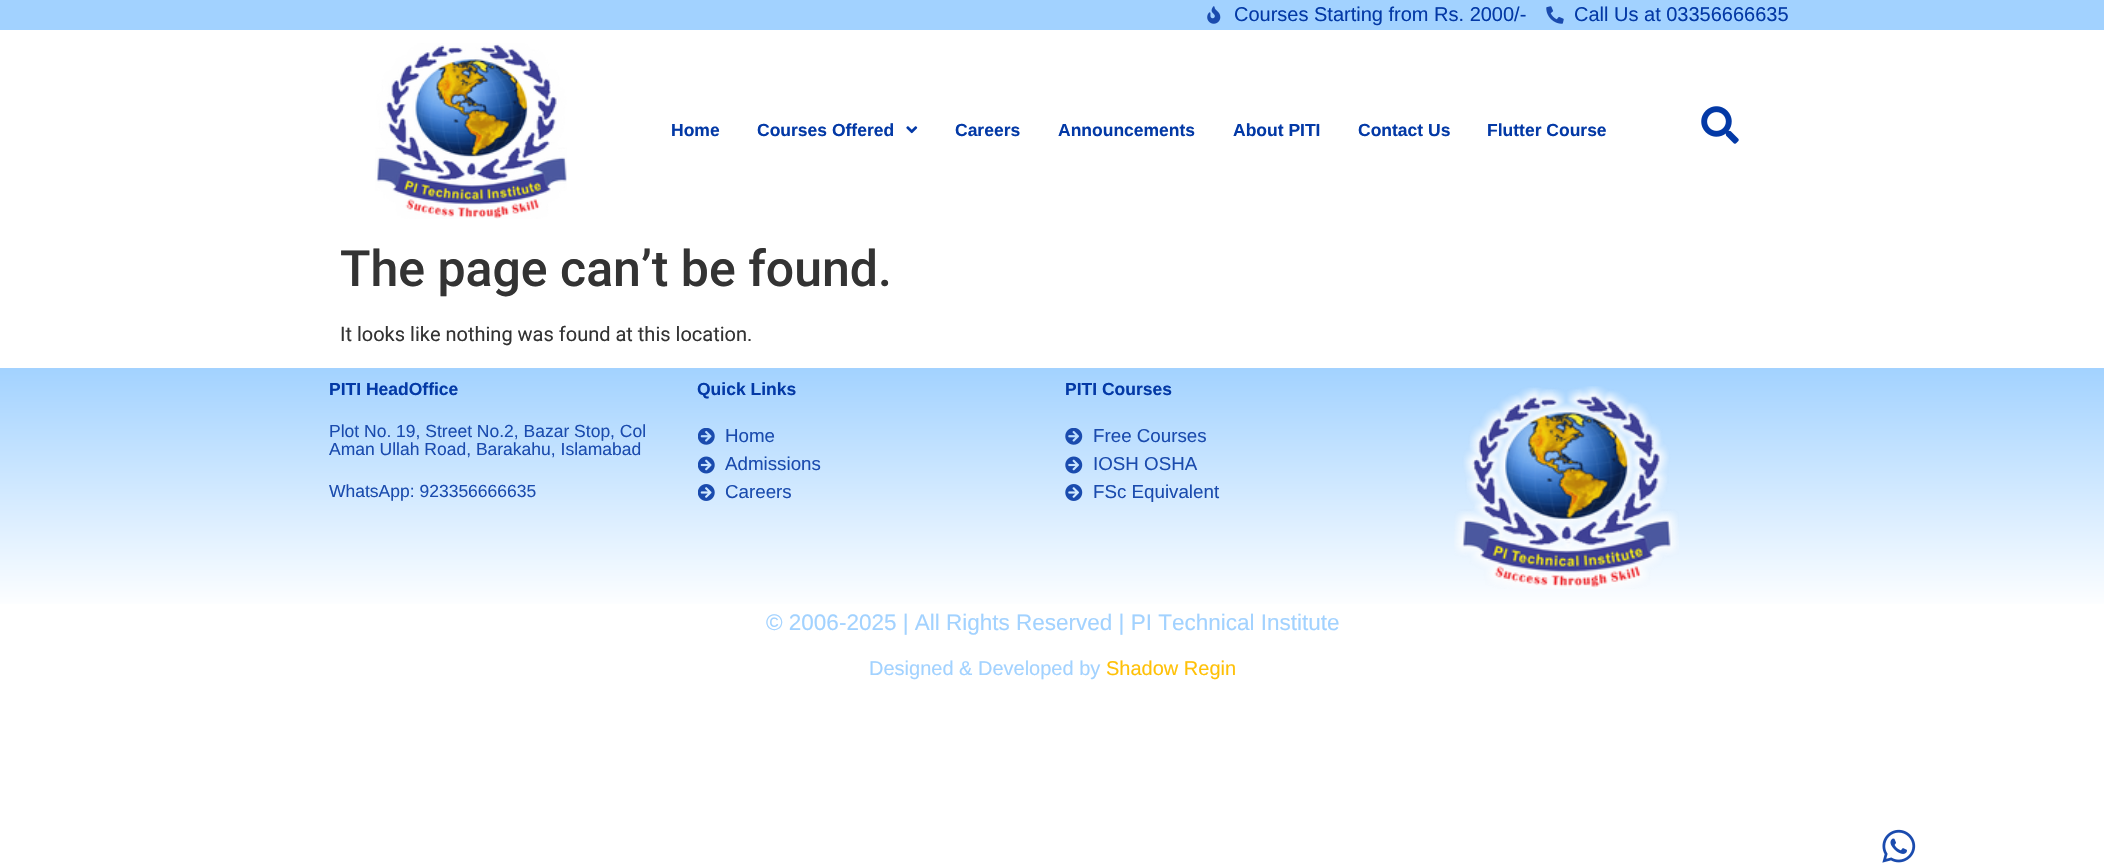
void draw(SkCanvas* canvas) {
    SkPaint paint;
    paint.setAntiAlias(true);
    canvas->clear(0xFFFFFFFF);
    paint.setColor(0xFFA2D2FF);
    canvas->drawRect(SkRect::MakeXYWH(0, 0, 2104, 30), paint);
    canvas->drawImageRect(SkImages::DeferredFromEncodedData(SkData::MakeFromFileName("img1.png")), SkRect::MakeXYWH(1207, 6, 14, 18), SkSamplingOptions());
    SkFont font1(fontMgr->matchFamilyStyle("Liberation Sans", SkFontStyle::Normal()), 20);
    font1.setSubpixel(true);
    paint.setColor(0xFF0339A6);
    canvas->drawString("Courses Starting from Rs. 2000/-", 1234, 21, font1, paint);
    canvas->drawImageRect(SkImages::DeferredFromEncodedData(SkData::MakeFromFileName("img2.png")), SkRect::MakeXYWH(1546, 6, 18, 18), SkSamplingOptions());
    canvas->drawString("Call Us at 03356666635", 1574, 21, font1, paint);
    canvas->drawImageRect(SkImages::DeferredFromEncodedData(SkData::MakeFromFileName("img3.png")), SkRect::MakeXYWH(375, 43, 192, 176), SkSamplingOptions());
    SkFont font2(fontMgr->matchFamilyStyle("Liberation Sans", SkFontStyle::Bold()), 17.5f);
    font2.setSubpixel(true);
    canvas->drawString("Home", 671, 136, font2, paint);
    canvas->drawString("Courses Offered", 757, 136, font2, paint);
    canvas->drawImageRect(SkImages::DeferredFromEncodedData(SkData::MakeFromFileName("img4.png")), SkRect::MakeXYWH(906, 126, 12, 8), SkSamplingOptions());
    canvas->drawString("Careers", 955, 136, font2, paint);
    canvas->drawString("Announcements", 1058, 136, font2, paint);
    canvas->drawString("About PITI", 1233, 136, font2, paint);
    canvas->drawString("Contact Us", 1358, 136, font2, paint);
    canvas->drawString("Flutter Course", 1487, 136, font2, paint);
    canvas->drawImageRect(SkImages::DeferredFromEncodedData(SkData::MakeFromFileName("img5.png")), SkRect::MakeXYWH(1701, 106, 38, 38), SkSamplingOptions());
    SkFont font3(fontMgr->matchFamilyStyle("Roboto", SkFontStyle(500, SkFontStyle::kNormal_Width, SkFontStyle::kUpright_Slant)), 50);
    font3.setSubpixel(true);
    paint.setColor(0xFF333333);
    canvas->drawString("The page can’t be found.", 340, 286, font3, paint);
    SkFont font4(fontMgr->matchFamilyStyle("Roboto", SkFontStyle::Normal()), 20);
    font4.setSubpixel(true);
    canvas->drawString("It looks like nothing was found at this location.", 340, 341, font4, paint);
    {
        const SkColor colors[] = {0xFFA2D2FF, 0xFFFFFFFF};
        const float stops[] = {0, 1};
        const SkPoint ends[] = {{1053, 367}, {1053, 611}};
        paint.setShader(SkGradientShader::MakeLinear(ends, colors, stops, 2, SkTileMode::kClamp));
        paint.setAlpha(255);
    }
    canvas->drawRect(SkRect::MakeXYWH(0, 368, 2104, 236), paint);
    paint.setShader(nullptr);
    paint.setColor(0xFF0339A6);
    canvas->drawString("PITI HeadOffice", 329, 395, font2, paint);
    SkFont font5(fontMgr->matchFamilyStyle("Liberation Sans", SkFontStyle::Normal()), 17.5f);
    font5.setSubpixel(true);
    paint.setColor(0xFF1A4BAE);
    canvas->drawString("Plot No. 19, Street No.2, Bazar Stop, Col", 329, 437, font5, paint);
    canvas->drawString("Aman Ullah Road, Barakahu, Islamabad", 329, 455, font5, paint);
    canvas->drawString("WhatsApp: 923356666635", 329, 497, font5, paint);
    paint.setColor(0xFF0339A6);
    canvas->drawString("Quick Links", 697, 395, font2, paint);
    canvas->drawImageRect(SkImages::DeferredFromEncodedData(SkData::MakeFromFileName("img6.png")), SkRect::MakeXYWH(698, 428, 17, 17), SkSamplingOptions());
    SkFont font6(fontMgr->matchFamilyStyle("Liberation Sans", SkFontStyle::Normal()), 18.75f);
    font6.setSubpixel(true);
    paint.setColor(0xFF1A4BAE);
    canvas->drawString("Home", 725, 442, font6, paint);
    canvas->drawImageRect(SkImages::DeferredFromEncodedData(SkData::MakeFromFileName("img7.png")), SkRect::MakeXYWH(698, 456, 17, 18), SkSamplingOptions());
    canvas->drawString("Admissions", 725, 470, font6, paint);
    canvas->drawImageRect(SkImages::DeferredFromEncodedData(SkData::MakeFromFileName("img8.png")), SkRect::MakeXYWH(698, 484, 17, 17), SkSamplingOptions());
    canvas->drawString("Careers", 725, 498, font6, paint);
    canvas->drawImageRect(SkImages::DeferredFromEncodedData(SkData::MakeFromFileName("img9.png")), SkRect::MakeXYWH(1882, 829, 34, 34), SkSamplingOptions());
    paint.setColor(0xFF0339A6);
    canvas->drawString("PITI Courses", 1065, 395, font2, paint);
    canvas->drawImageRect(SkImages::DeferredFromEncodedData(SkData::MakeFromFileName("img10.png")), SkRect::MakeXYWH(1065, 428, 18, 17), SkSamplingOptions());
    paint.setColor(0xFF1A4BAE);
    canvas->drawString("Free Courses", 1093, 442, font6, paint);
    canvas->drawImageRect(SkImages::DeferredFromEncodedData(SkData::MakeFromFileName("img11.png")), SkRect::MakeXYWH(1065, 456, 18, 18), SkSamplingOptions());
    canvas->drawString("IOSH OSHA", 1093, 470, font6, paint);
    canvas->drawImageRect(SkImages::DeferredFromEncodedData(SkData::MakeFromFileName("img12.png")), SkRect::MakeXYWH(1065, 484, 18, 17), SkSamplingOptions());
    canvas->drawString("FSc Equivalent", 1093, 498, font6, paint);
    canvas->drawImageRect(SkImages::DeferredFromEncodedData(SkData::MakeFromFileName("img13.png")), SkRect::MakeXYWH(1454, 386, 225, 203), SkSamplingOptions());
    SkFont font7(fontMgr->matchFamilyStyle("Liberation Sans", SkFontStyle::Normal()), 22.5f);
    font7.setSubpixel(true);
    paint.setColor(0xFFA2D2FF);
    canvas->drawString("© 2006-2025 | All Rights Reserved | PI Technical Institute", 766, 630, font7, paint);
    canvas->drawString("Designed & Developed by", 869, 675, font1, paint);
    paint.setColor(0xFFFFC107);
    canvas->drawString("Shadow Regin", 1106, 675, font1, paint);
}
